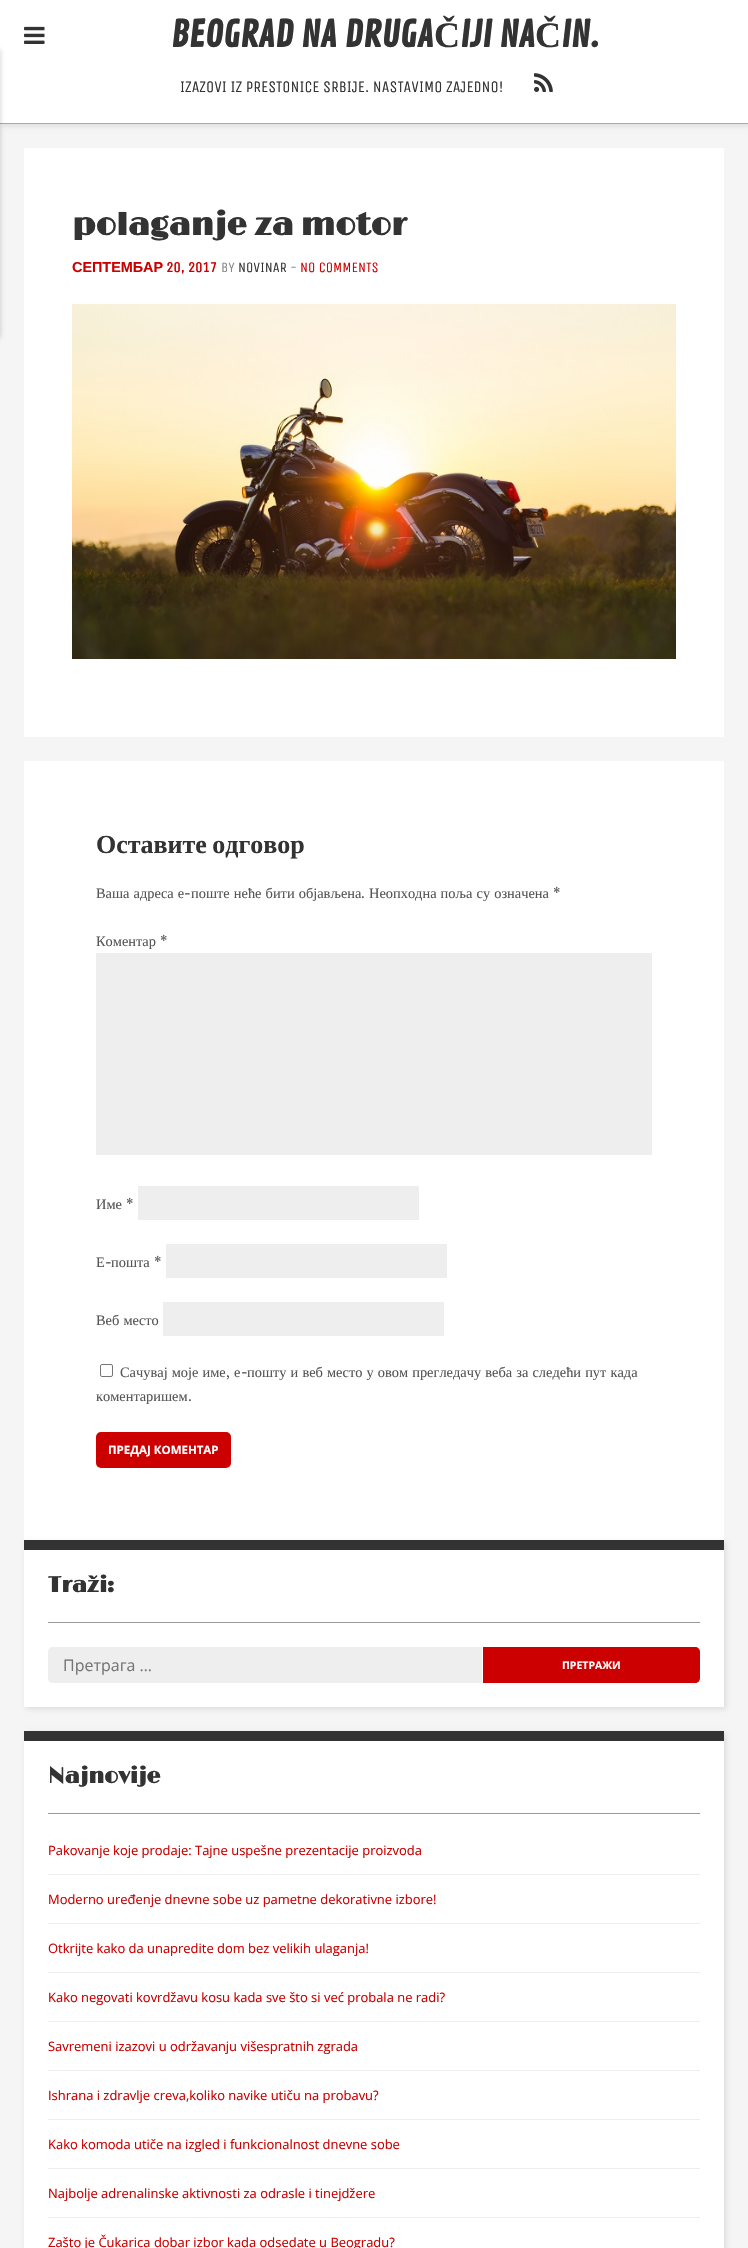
void draw(SkCanvas* canvas) {
    SkPaint paint;
    paint.setAntiAlias(true);
    auto spacedText = [&](const char* s, float x, float y, const SkFont& font, const SkPaint& ink, float letter, float word) {
        std::vector<SkGlyphID> glyphs(font.countText(s, strlen(s), SkTextEncoding::kUTF8));
        std::vector<float> xs(glyphs.size());
        font.textToGlyphs(s, strlen(s), SkTextEncoding::kUTF8, glyphs);
        font.getXPos(glyphs, xs, x);
        float extra = 0;
        for (size_t i = 0; i < glyphs.size(); i++) {
            xs[i] += extra;
            extra += letter + word * (glyphs[i] == font.unicharToGlyph(' '));
        }
        canvas->drawTextBlob(SkTextBlob::MakeFromPosHGlyphs(glyphs, xs, y, font), 0, 0, ink);
    };
    canvas->clear(0xFFF5F5F5);
    paint.setColor(0x1A000000);
    paint.setMaskFilter(SkMaskFilter::MakeBlur(kNormal_SkBlurStyle, 2.5f));
    canvas->drawRect(SkRect::MakeXYWH(2, 2, 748, 124), paint);
    paint.setMaskFilter(nullptr);
    paint.setColor(0xFFFFFFFF);
    canvas->drawRect(SkRect::MakeXYWH(0, 0, 748, 123), paint);
    paint.setColor(0xFFAAAAAA);
    canvas->drawRect(SkRect::MakeXYWH(0, 123, 748, 1), paint);
    paint.setColor(0x33000000);
    paint.setMaskFilter(SkMaskFilter::MakeBlur(kNormal_SkBlurStyle, 2.5f));
    canvas->drawRect(SkRect::MakeXYWH(-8, 50, 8, 288), paint);
    paint.setMaskFilter(nullptr);
    canvas->drawImageRect(SkImages::DeferredFromEncodedData(SkData::MakeFromFileName("img1.png")), SkRect::MakeXYWH(24, 26, 21, 18), SkSamplingOptions());
    SkFont font1(fontMgr->matchFamilyStyle("Contrail One", SkFontStyle::Bold()), 36);
    font1.setSubpixel(true);
    paint.setColor(0xFF333333);
    canvas->drawString("BEOGRAD NA DRUGA", 171, 47, font1, paint);
    SkFont font2(fontMgr->matchFamilyStyle("Liberation Serif", SkFontStyle::Bold()), 36);
    font2.setSubpixel(true);
    canvas->drawString("Č", 434, 47, font2, paint);
    canvas->drawString("IJI NA", 460, 47, font1, paint);
    canvas->drawString("Č", 535, 47, font2, paint);
    canvas->drawString("IN.", 561, 47, font1, paint);
    SkFont font3(fontMgr->matchFamilyStyle("Unica One", SkFontStyle::Normal()), 16);
    font3.setSubpixel(true);
    canvas->drawString("IZAZOVI IZ PRESTONICE SRBIJE. NASTAVIMO ZAJEDNO!", 180, 92, font3, paint);
    canvas->drawImageRect(SkImages::DeferredFromEncodedData(SkData::MakeFromFileName("img2.png")), SkRect::MakeXYWH(534, 73, 19, 19), SkSamplingOptions());
    paint.setColor(0xFFFFFFFF);
    canvas->drawRect(SkRect::MakeXYWH(24, 148, 700, 589), paint);
    SkFont font4(fontMgr->matchFamilyStyle("Limelight", SkFontStyle::Bold()), 32);
    font4.setSubpixel(true);
    paint.setColor(0xFF333333);
    canvas->drawString("polaganje za motor", 72, 235, font4, paint);
    SkFont font5(fontMgr->matchFamilyStyle("Liberation Sans", SkFontStyle::Bold()), 14.4f);
    font5.setSubpixel(true);
    paint.setColor(0xFFCC0000);
    canvas->drawString("СЕПТЕМБАР", 72, 272, font5, paint);
    SkFont font6(fontMgr->matchFamilyStyle("Unica One", SkFontStyle::Bold()), 14.4f);
    font6.setSubpixel(true);
    canvas->drawString("20, 2017", 166, 272, font6, paint);
    SkFont font7(fontMgr->matchFamilyStyle("Unica One", SkFontStyle::Normal()), 14.4f);
    font7.setSubpixel(true);
    paint.setColor(0xFF888888);
    canvas->drawString("BY", 221, 272, font7, paint);
    paint.setColor(0xFF333333);
    canvas->drawString("NOVINAR", 238, 272, font7, paint);
    paint.setColor(0xFF888888);
    canvas->drawString("-", 290, 272, font7, paint);
    paint.setColor(0xFFCC0000);
    canvas->drawString("NO COMMENTS", 300, 272, font7, paint);
    canvas->drawImageRect(SkImages::DeferredFromEncodedData(SkData::MakeFromFileName("img3.png")), SkRect::MakeXYWH(72, 304, 604, 355), SkSamplingOptions());
    paint.setColor(0xFFFFFFFF);
    canvas->drawRect(SkRect::MakeXYWH(24, 761, 700, 779), paint);
    SkFont font8(fontMgr->matchFamilyStyle("Liberation Serif", SkFontStyle::Bold()), 26);
    font8.setSubpixel(true);
    paint.setColor(0xFF333333);
    spacedText("Оставите одговор", 96, 853, font8, paint, 0, -1);
    SkFont font9(fontMgr->matchFamilyStyle("Liberation Serif", SkFontStyle::Normal()), 14.4f);
    font9.setSubpixel(true);
    paint.setColor(0xFF555555);
    spacedText("Ваша адреса е", 96, 898, font9, paint, 0, 0.5f);
    SkFont font10(fontMgr->matchFamilyStyle("Libre Baskerville", SkFontStyle::Normal()), 14.4f);
    font10.setSubpixel(true);
    canvas->drawString("-", 184, 898, font10, paint);
    spacedText("поште неће бити објављена", 191, 898, font9, paint, 0, 0.5f);
    spacedText("Неопходна поља су означена", 369, 898, font9, paint, 0, 0.5f);
    canvas->drawString("*", 553, 898, font10, paint);
    canvas->drawString(".", 361, 898, font10, paint);
    canvas->drawString("Коментар", 96, 946, font9, paint);
    canvas->drawString("*", 160, 946, font10, paint);
    paint.setColor(0xFFEEEEEE);
    canvas->drawRect(SkRect::MakeXYWH(96, 953, 556, 202), paint);
    paint.setColor(0xFF555555);
    canvas->drawString("Име", 96, 1209, font9, paint);
    canvas->drawString("*", 126, 1209, font10, paint);
    paint.setColor(0xFFEEEEEE);
    canvas->drawRect(SkRect::MakeXYWH(138, 1186, 281, 34), paint);
    paint.setColor(0xFF555555);
    canvas->drawString("Е", 96, 1267, font9, paint);
    canvas->drawString("-", 105, 1267, font10, paint);
    canvas->drawString("пошта", 111, 1267, font9, paint);
    canvas->drawString("*", 154, 1267, font10, paint);
    paint.setColor(0xFFEEEEEE);
    canvas->drawRect(SkRect::MakeXYWH(166, 1244, 281, 34), paint);
    paint.setColor(0xFF555555);
    spacedText("Веб место", 96, 1325, font9, paint, 0, 0.5f);
    paint.setColor(0xFFEEEEEE);
    canvas->drawRect(SkRect::MakeXYWH(163, 1302, 281, 34), paint);
    paint.setStyle(SkPaint::kStroke_Style);
    paint.setStrokeWidth(1);
    paint.setColor(0xFF767676);
    canvas->drawRoundRect(SkRect::MakeXYWH(100.5f, 1364.5f, 12, 12), 1.5f, 1.5f, paint);
    paint.setStyle(SkPaint::kFill_Style);
    paint.setColor(0xFF555555);
    spacedText("Сачувај моје име", 120, 1377, font9, paint, 0, 0.5f);
    canvas->drawString("е", 234, 1377, font9, paint);
    canvas->drawString("-", 241, 1377, font10, paint);
    spacedText("пошту и веб место у овом прегледачу веба за следећи пут када", 247, 1377, font9, paint, 0, 0.5f);
    canvas->drawString(",", 226, 1377, font10, paint);
    canvas->drawString("коментаришем", 96, 1401, font9, paint);
    canvas->drawString(".", 188, 1401, font10, paint);
    paint.setColor(0xFFCC0000);
    canvas->drawRoundRect(SkRect::MakeXYWH(96, 1432, 135, 36), 5, 5, paint);
    SkFont font11(fontMgr->matchFamilyStyle("Open Sans", SkFontStyle::Bold()), 11.5f);
    font11.setSubpixel(true);
    paint.setColor(0xFFFFFFFF);
    canvas->drawString("ПРЕДАЈ КОМЕНТАР", 108, 1454, font11, paint);
    paint.setColor(0x1A000000);
    paint.setMaskFilter(SkMaskFilter::MakeBlur(kNormal_SkBlurStyle, 2.5f));
    canvas->drawRect(SkRect::MakeXYWH(26, 1542, 700, 167), paint);
    paint.setMaskFilter(nullptr);
    paint.setColor(0xFFFFFFFF);
    canvas->drawRect(SkRect::MakeXYWH(24, 1550, 700, 157), paint);
    paint.setColor(0xFF333333);
    canvas->drawRect(SkRect::MakeXYWH(24, 1540, 700, 10), paint);
    paint.setColor(0xFF999999);
    canvas->drawRect(SkRect::MakeXYWH(48, 1622, 652, 1), paint);
    SkFont font12(fontMgr->matchFamilyStyle("Limelight", SkFontStyle::Bold()), 22);
    font12.setSubpixel(true);
    paint.setColor(0xFF333333);
    canvas->drawString("Traži:", 48, 1592, font12, paint);
    paint.setColor(0xFFEEEEEE);
    canvas->drawPath(SkPathBuilder().moveTo(53, 1647).lineTo(482, 1647).lineTo(482, 1683).lineTo(53, 1683).cubicTo(50, 1683, 48, 1681, 48, 1678).lineTo(48, 1652).cubicTo(48, 1649, 50, 1647, 53, 1647).close().detach(), paint);
    SkFont font13(fontMgr->matchFamilyStyle("Open Sans", SkFontStyle::Normal()), 16);
    font13.setSubpixel(true);
    paint.setColor(0xFF757575);
    canvas->drawString("Претрага …", 63, 1671, font13, paint);
    paint.setColor(0xFFCC0000);
    canvas->drawPath(SkPathBuilder().moveTo(483, 1647).lineTo(695, 1647).cubicTo(698, 1647, 700, 1649, 700, 1652).lineTo(700, 1678).cubicTo(700, 1681, 698, 1683, 695, 1683).lineTo(483, 1683).close().detach(), paint);
    SkFont font14(fontMgr->matchFamilyStyle("Open Sans", SkFontStyle::Bold()), 10.5f);
    font14.setSubpixel(true);
    paint.setColor(0xFFFFFFFF);
    canvas->drawString("ПРЕТРАЖИ", 562, 1669, font14, paint);
    paint.setColor(0x1A000000);
    paint.setMaskFilter(SkMaskFilter::MakeBlur(kNormal_SkBlurStyle, 2.5f));
    canvas->drawRect(SkRect::MakeXYWH(26, 1733, 700, 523), paint);
    paint.setMaskFilter(nullptr);
    paint.setColor(0xFFFFFFFF);
    canvas->drawRect(SkRect::MakeXYWH(24, 1741, 700, 507), paint);
    paint.setColor(0xFF333333);
    canvas->drawRect(SkRect::MakeXYWH(24, 1731, 700, 10), paint);
    paint.setColor(0xFF999999);
    canvas->drawRect(SkRect::MakeXYWH(48, 1813, 652, 1), paint);
    paint.setColor(0xFF333333);
    canvas->drawString("Najnovije", 48, 1783, font12, paint);
    paint.setColor(0xFFEEEEEE);
    canvas->drawRect(SkRect::MakeXYWH(48, 1874, 652, 1), paint);
    SkFont font15(fontMgr->matchFamilyStyle("Open Sans", SkFontStyle::Normal()), 12.95f);
    font15.setSubpixel(true);
    paint.setColor(0xFFCC0000);
    canvas->drawString("Pakovanje koje prodaje: Tajne uspešne prezentacije proizvoda", 48, 1855, font15, paint);
    paint.setColor(0xFFEEEEEE);
    canvas->drawRect(SkRect::MakeXYWH(48, 1923, 652, 1), paint);
    paint.setColor(0xFFCC0000);
    canvas->drawString("Moderno uređenje dnevne sobe uz pametne dekorativne izbore!", 48, 1904, font15, paint);
    paint.setColor(0xFFEEEEEE);
    canvas->drawRect(SkRect::MakeXYWH(48, 1972, 652, 1), paint);
    paint.setColor(0xFFCC0000);
    canvas->drawString("Otkrijte kako da unapredite dom bez velikih ulaganja!", 48, 1953, font15, paint);
    paint.setColor(0xFFEEEEEE);
    canvas->drawRect(SkRect::MakeXYWH(48, 2021, 652, 1), paint);
    paint.setColor(0xFFCC0000);
    canvas->drawString("Kako negovati kovrdžavu kosu kada sve što si već probala ne radi?", 48, 2002, font15, paint);
    paint.setColor(0xFFEEEEEE);
    canvas->drawRect(SkRect::MakeXYWH(48, 2070, 652, 1), paint);
    paint.setColor(0xFFCC0000);
    canvas->drawString("Savremeni izazovi u održavanju višespratnih zgrada", 48, 2051, font15, paint);
    paint.setColor(0xFFEEEEEE);
    canvas->drawRect(SkRect::MakeXYWH(48, 2119, 652, 1), paint);
    paint.setColor(0xFFCC0000);
    canvas->drawString("Ishrana i zdravlje creva,koliko navike utiču na probavu?", 48, 2100, font15, paint);
    paint.setColor(0xFFEEEEEE);
    canvas->drawRect(SkRect::MakeXYWH(48, 2168, 652, 1), paint);
    paint.setColor(0xFFCC0000);
    canvas->drawString("Kako komoda utiče na izgled i funkcionalnost dnevne sobe", 48, 2149, font15, paint);
    paint.setColor(0xFFEEEEEE);
    canvas->drawRect(SkRect::MakeXYWH(48, 2217, 652, 1), paint);
    paint.setColor(0xFFCC0000);
    canvas->drawString("Najbolje adrenalinske aktivnosti za odrasle i tinejdžere", 48, 2198, font15, paint);
    canvas->drawString("Zašto je Čukarica dobar izbor kada odsedate u Beogradu?", 48, 2247, font15, paint);
}
